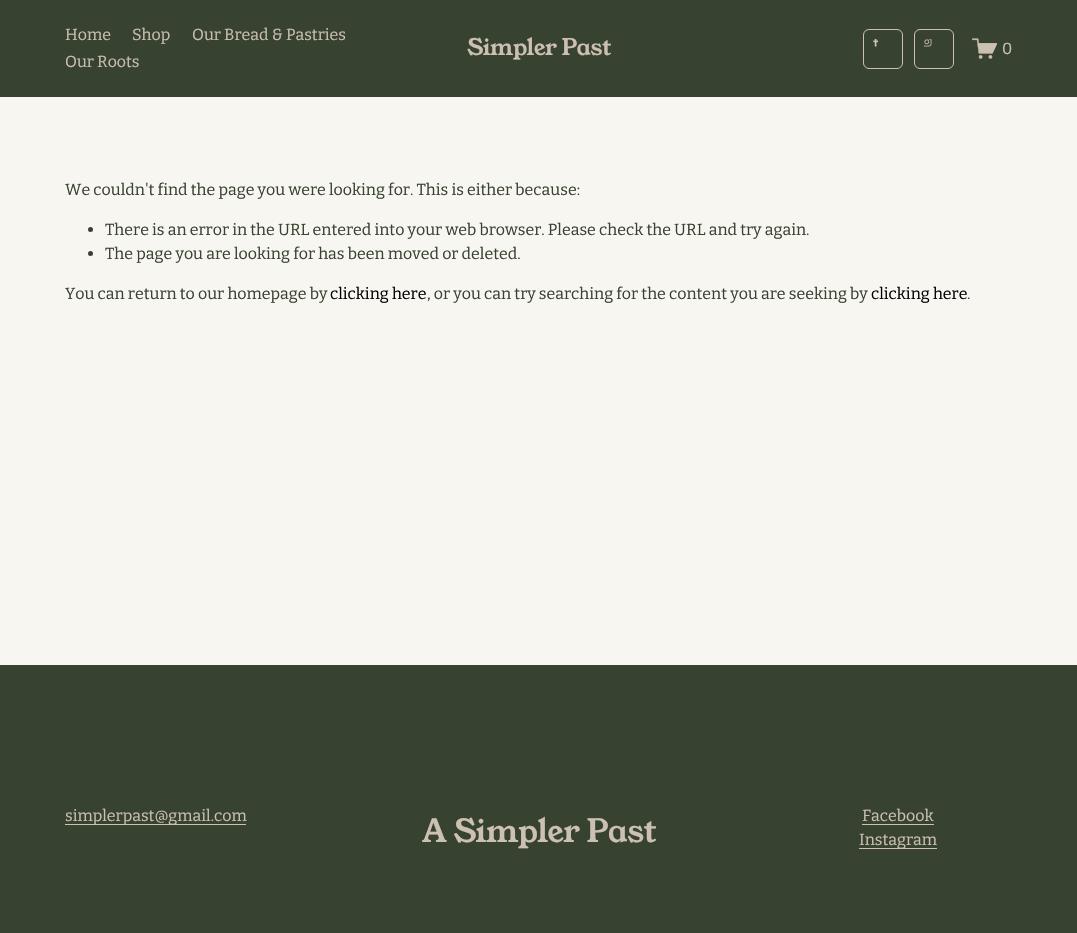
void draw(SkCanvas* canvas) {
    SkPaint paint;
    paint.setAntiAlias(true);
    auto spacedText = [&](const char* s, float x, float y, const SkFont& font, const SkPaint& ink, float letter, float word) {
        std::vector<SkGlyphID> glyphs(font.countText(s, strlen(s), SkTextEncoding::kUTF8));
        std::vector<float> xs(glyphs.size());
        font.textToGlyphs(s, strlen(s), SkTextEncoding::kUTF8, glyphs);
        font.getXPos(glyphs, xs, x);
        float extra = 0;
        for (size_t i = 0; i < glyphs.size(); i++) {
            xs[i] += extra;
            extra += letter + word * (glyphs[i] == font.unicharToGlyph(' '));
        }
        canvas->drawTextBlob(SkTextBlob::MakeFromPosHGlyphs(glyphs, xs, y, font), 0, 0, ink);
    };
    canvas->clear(0xFFF8F6F1);
    paint.setColor(0xFF384230);
    canvas->drawRect(SkRect::MakeXYWH(0, 0, 1077, 97), paint);
    SkFont font1(fontMgr->matchFamilyStyle("Bitter", SkFontStyle::Normal()), 16);
    font1.setSubpixel(true);
    paint.setColor(0xFFCBC0B2);
    canvas->drawString("Home", 65, 40, font1, paint);
    canvas->drawString("Shop", 132, 40, font1, paint);
    canvas->drawString("Our Bread & Pastries", 192, 40, font1, paint);
    canvas->drawString("Our Roots", 65, 67, font1, paint);
    SkFont font2(fontMgr->matchFamilyStyle("Young Serif", SkFontStyle::Normal()), 22.5f);
    font2.setSubpixel(true);
    spacedText("Simpler Past", 467, 55, font2, paint, -0.5f, 0);
    paint.setStyle(SkPaint::kStroke_Style);
    paint.setStrokeWidth(1);
    canvas->drawRoundRect(SkRect::MakeXYWH(863.5f, 29.5f, 39, 39), 5.5f, 5.5f, paint);
    canvas->drawImageRect(SkImages::DeferredFromEncodedData(SkData::MakeFromFileName("img1.png")), SkRect::MakeXYWH(873, 39, 6, 8), SkSamplingOptions());
    canvas->drawRoundRect(SkRect::MakeXYWH(914.5f, 29.5f, 39, 39), 5.5f, 5.5f, paint);
    canvas->drawImageRect(SkImages::DeferredFromEncodedData(SkData::MakeFromFileName("img2.png")), SkRect::MakeXYWH(924, 39, 8, 8), SkSamplingOptions());
    canvas->drawImageRect(SkImages::DeferredFromEncodedData(SkData::MakeFromFileName("img3.png")), SkRect::MakeXYWH(972, 38, 25, 21), SkSamplingOptions());
    paint.setStyle(SkPaint::kFill_Style);
    canvas->drawString("0", 1002, 54, font1, paint);
    paint.setColor(0xFF384230);
    canvas->drawString("We couldn't find the page you were looking for. This is either because:", 65, 195, font1, paint);
    canvas->drawCircle(90.5f, 229.5f, 2.5f, paint);
    canvas->drawString("There is an error in the URL entered into your web browser. Please check the URL and try again.", 105, 235, font1, paint);
    canvas->drawCircle(90.5f, 253.5f, 2.5f, paint);
    canvas->drawString("The page you are looking for has been moved or deleted.", 105, 259, font1, paint);
    canvas->drawString("You can return to our homepage by", 65, 299, font1, paint);
    paint.setColor(0xFF000000);
    canvas->drawString("clicking here", 330, 299, font1, paint);
    paint.setColor(0xFF384230);
    canvas->drawString(", or you can try searching for the content you are seeking by", 427, 299, font1, paint);
    paint.setColor(0xFF000000);
    canvas->drawString("clicking here", 871, 299, font1, paint);
    paint.setColor(0xFF384230);
    canvas->drawString(".", 967, 299, font1, paint);
    canvas->drawRect(SkRect::MakeXYWH(0, 665, 1077, 268), paint);
    paint.setColor(0xFFCBC0B2);
    canvas->drawRect(SkRect::MakeXYWH(65, 824, 181, 1), paint);
    canvas->drawString("simplerpast@gmail.com", 65, 821, font1, paint);
    SkFont font3(fontMgr->matchFamilyStyle("Young Serif", SkFontStyle::Normal()), 31.5f);
    font3.setSubpixel(true);
    spacedText("A Simpler Past", 422, 842, font3, paint, -0.6f, 0);
    canvas->drawString("Facebook", 862, 821, font1, paint);
    canvas->drawRect(SkRect::MakeXYWH(862, 824, 72, 1), paint);
    canvas->drawRect(SkRect::MakeXYWH(859, 848, 78, 1), paint);
    canvas->drawString("Instagram", 859, 845, font1, paint);
}
